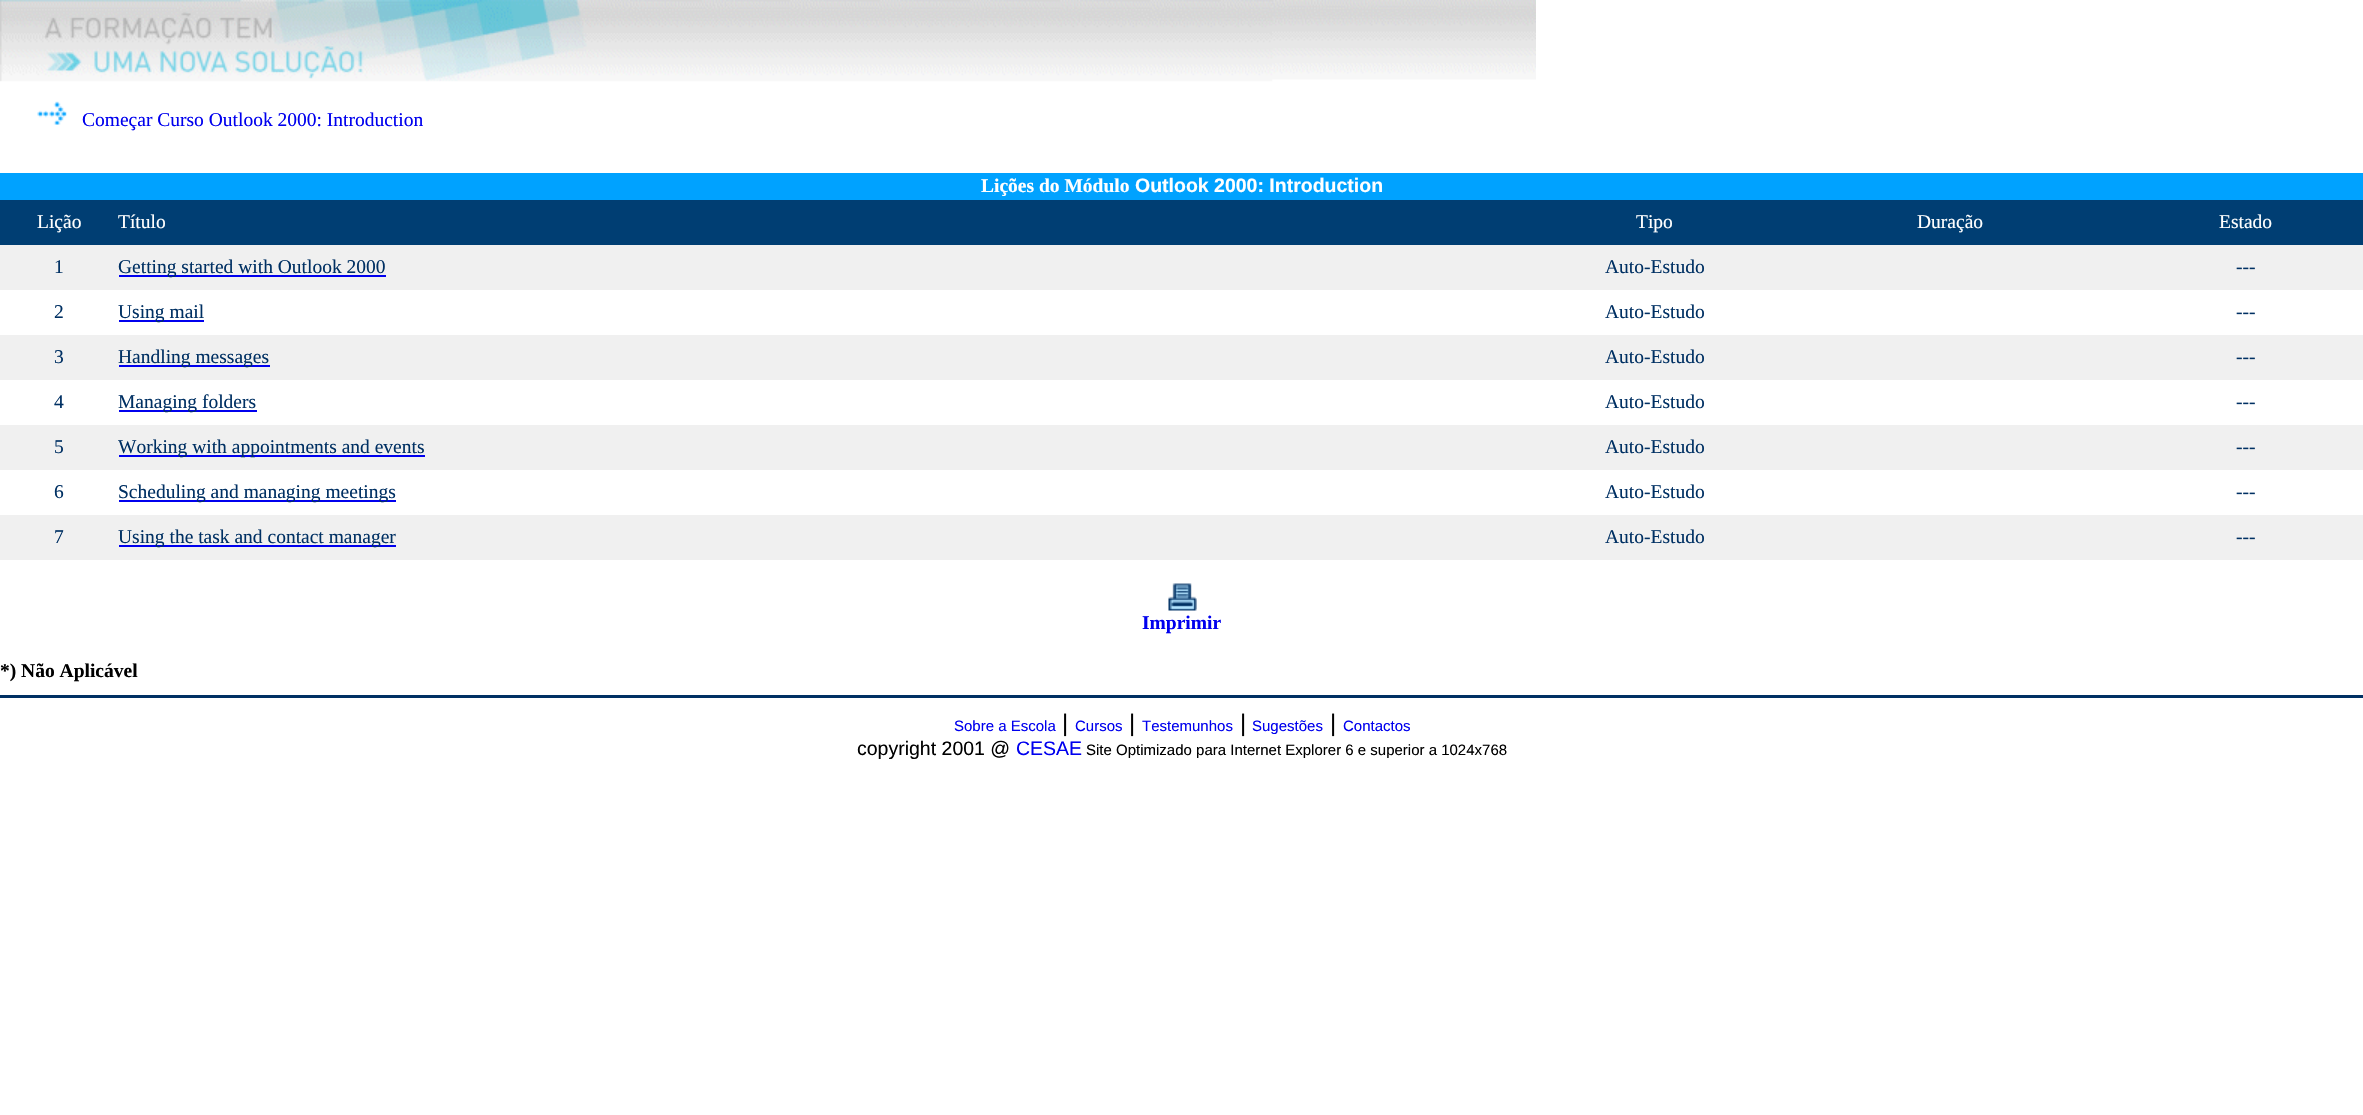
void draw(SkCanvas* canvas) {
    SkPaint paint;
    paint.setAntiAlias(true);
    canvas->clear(0xFFFFFFFF);
    canvas->drawImageRect(SkImages::DeferredFromEncodedData(SkData::MakeFromFileName("img1.png")), SkRect::MakeXYWH(0, 0, 1536, 82), SkSamplingOptions());
    canvas->drawImageRect(SkImages::DeferredFromEncodedData(SkData::MakeFromFileName("img2.png")), SkRect::MakeXYWH(37, 101, 30, 24), SkSamplingOptions());
    SkFont font1(fontMgr->matchFamilyStyle("Liberation Serif", SkFontStyle::Normal()), 19.5f);
    font1.setSubpixel(true);
    paint.setColor(0xFF0000EE);
    canvas->drawString("Começar Curso Outlook 2000: Introduction", 82, 126, font1, paint);
    paint.setColor(0xFF00A2FF);
    canvas->drawRect(SkRect::MakeXYWH(0, 173, 2363, 27), paint);
    SkFont font2(fontMgr->matchFamilyStyle("Liberation Serif", SkFontStyle::Bold()), 19.5f);
    font2.setSubpixel(true);
    paint.setColor(0xFFFFFFFF);
    canvas->drawString("Lições do Módulo", 981, 192, font2, paint);
    SkFont font3(fontMgr->matchFamilyStyle("Liberation Sans", SkFontStyle::Bold()), 19.5f);
    font3.setSubpixel(true);
    canvas->drawString("Outlook 2000: Introduction", 1135, 192, font3, paint);
    paint.setColor(0xFF003E73);
    canvas->drawRect(SkRect::MakeXYWH(0, 200, 2363, 45), paint);
    paint.setColor(0xFFFFFFFF);
    canvas->drawString("Lição", 37, 228, font1, paint);
    canvas->drawString("Título", 118, 228, font1, paint);
    canvas->drawString("Tipo", 1636, 228, font1, paint);
    canvas->drawString("Duração", 1917, 228, font1, paint);
    canvas->drawString("Estado", 2219, 228, font1, paint);
    paint.setColor(0xFFF0F0F0);
    canvas->drawRect(SkRect::MakeXYWH(0, 245, 2363, 45), paint);
    paint.setColor(0xFF003063);
    canvas->drawString("1", 54, 273, font1, paint);
    paint.setColor(0xFF0000EE);
    canvas->drawRect(SkRect::MakeXYWH(119, 275, 267, 2), paint);
    paint.setColor(0xFF003063);
    canvas->drawString("Getting started with Outlook 2000", 118, 273, font1, paint);
    canvas->drawString("Auto-Estudo", 1605, 273, font1, paint);
    canvas->drawString("---", 2236, 273, font1, paint);
    canvas->drawString("2", 54, 318, font1, paint);
    paint.setColor(0xFF0000EE);
    canvas->drawRect(SkRect::MakeXYWH(119, 320, 85, 2), paint);
    paint.setColor(0xFF003063);
    canvas->drawString("Using mail", 118, 318, font1, paint);
    canvas->drawString("Auto-Estudo", 1605, 318, font1, paint);
    canvas->drawString("---", 2236, 318, font1, paint);
    paint.setColor(0xFFF0F0F0);
    canvas->drawRect(SkRect::MakeXYWH(0, 335, 2363, 45), paint);
    paint.setColor(0xFF003063);
    canvas->drawString("3", 54, 363, font1, paint);
    paint.setColor(0xFF0000EE);
    canvas->drawRect(SkRect::MakeXYWH(119, 365, 151, 2), paint);
    paint.setColor(0xFF003063);
    canvas->drawString("Handling messages", 118, 363, font1, paint);
    canvas->drawString("Auto-Estudo", 1605, 363, font1, paint);
    canvas->drawString("---", 2236, 363, font1, paint);
    canvas->drawString("4", 54, 408, font1, paint);
    paint.setColor(0xFF0000EE);
    canvas->drawRect(SkRect::MakeXYWH(119, 410, 138, 2), paint);
    paint.setColor(0xFF003063);
    canvas->drawString("Managing folders", 118, 408, font1, paint);
    canvas->drawString("Auto-Estudo", 1605, 408, font1, paint);
    canvas->drawString("---", 2236, 408, font1, paint);
    paint.setColor(0xFFF0F0F0);
    canvas->drawRect(SkRect::MakeXYWH(0, 425, 2363, 45), paint);
    paint.setColor(0xFF003063);
    canvas->drawString("5", 54, 453, font1, paint);
    paint.setColor(0xFF0000EE);
    canvas->drawRect(SkRect::MakeXYWH(119, 455, 306, 2), paint);
    paint.setColor(0xFF003063);
    canvas->drawString("Working with appointments and events", 118, 453, font1, paint);
    canvas->drawString("Auto-Estudo", 1605, 453, font1, paint);
    canvas->drawString("---", 2236, 453, font1, paint);
    canvas->drawString("6", 54, 498, font1, paint);
    paint.setColor(0xFF0000EE);
    canvas->drawRect(SkRect::MakeXYWH(119, 500, 277, 2), paint);
    paint.setColor(0xFF003063);
    canvas->drawString("Scheduling and managing meetings", 118, 498, font1, paint);
    canvas->drawString("Auto-Estudo", 1605, 498, font1, paint);
    canvas->drawString("---", 2236, 498, font1, paint);
    paint.setColor(0xFFF0F0F0);
    canvas->drawRect(SkRect::MakeXYWH(0, 515, 2363, 45), paint);
    paint.setColor(0xFF003063);
    canvas->drawString("7", 54, 543, font1, paint);
    paint.setColor(0xFF0000EE);
    canvas->drawRect(SkRect::MakeXYWH(119, 545, 277, 2), paint);
    paint.setColor(0xFF003063);
    canvas->drawString("Using the task and contact manager", 118, 543, font1, paint);
    canvas->drawString("Auto-Estudo", 1605, 543, font1, paint);
    canvas->drawString("---", 2236, 543, font1, paint);
    canvas->drawImageRect(SkImages::DeferredFromEncodedData(SkData::MakeFromFileName("img3.png")), SkRect::MakeXYWH(1168, 583, 29, 28), SkSamplingOptions());
    paint.setColor(0xFF0000EE);
    canvas->drawString("Imprimir", 1142, 629, font2, paint);
    paint.setColor(0xFF000000);
    canvas->drawString("*) Não Aplicável", 0, 677, font2, paint);
    paint.setColor(0xFF003063);
    canvas->drawRect(SkRect::MakeXYWH(0, 695, 2363, 3), paint);
    SkFont font4(fontMgr->matchFamilyStyle("Liberation Sans", SkFontStyle::Normal()), 15);
    font4.setSubpixel(true);
    paint.setColor(0xFF0000EE);
    canvas->drawString("Sobre a Escola", 954, 731, font4, paint);
    SkFont font5(fontMgr->matchFamilyStyle("Liberation Sans", SkFontStyle::Normal()), 24);
    font5.setSubpixel(true);
    paint.setColor(0xFF000000);
    canvas->drawString("|", 1062, 731, font5, paint);
    paint.setColor(0xFF0000EE);
    canvas->drawString("Cursos", 1075, 731, font4, paint);
    paint.setColor(0xFF000000);
    canvas->drawString("|", 1129, 731, font5, paint);
    paint.setColor(0xFF0000EE);
    canvas->drawString("Testemunhos", 1142, 731, font4, paint);
    paint.setColor(0xFF000000);
    canvas->drawString("|", 1240, 731, font5, paint);
    paint.setColor(0xFF0000EE);
    canvas->drawString("Sugestões", 1252, 731, font4, paint);
    paint.setColor(0xFF000000);
    canvas->drawString("|", 1330, 731, font5, paint);
    paint.setColor(0xFF0000EE);
    canvas->drawString("Contactos", 1343, 731, font4, paint);
    SkFont font6(fontMgr->matchFamilyStyle("Liberation Sans", SkFontStyle::Normal()), 19.5f);
    font6.setSubpixel(true);
    paint.setColor(0xFF000000);
    canvas->drawString("copyright 2001 @", 857, 755, font6, paint);
    paint.setColor(0xFF0000EE);
    canvas->drawString("CESAE", 1016, 755, font6, paint);
    paint.setColor(0xFF000000);
    canvas->drawString("Site Optimizado para Internet Explorer 6 e superior a 1024x768", 1086, 755, font4, paint);
}
